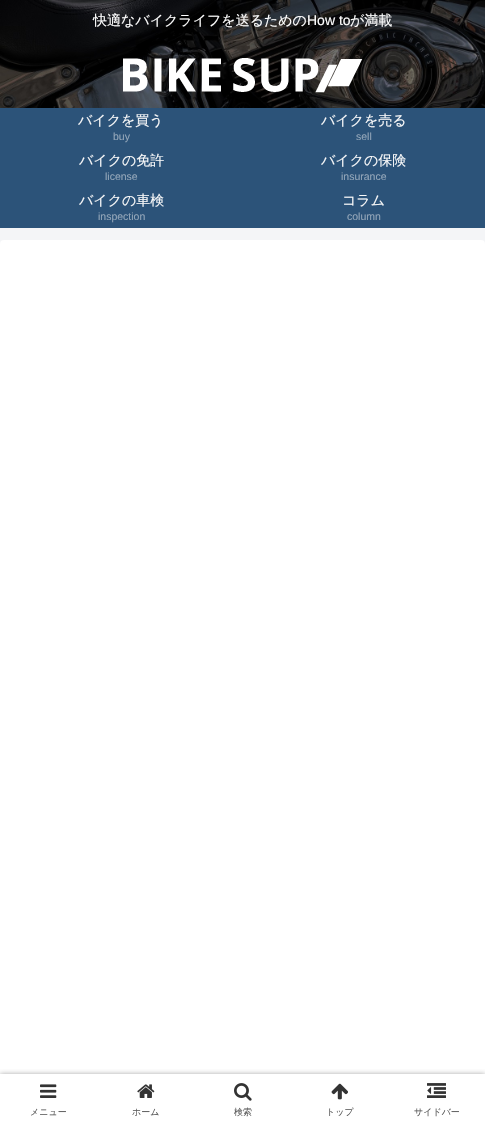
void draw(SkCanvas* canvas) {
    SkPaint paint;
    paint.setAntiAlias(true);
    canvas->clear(0xFFF4F5F7);
    canvas->drawImageRect(SkImages::DeferredFromEncodedData(SkData::MakeFromFileName("img1.png")), SkRect::MakeXYWH(0, 0, 485, 108), SkSamplingOptions());
    SkFont font1(fontMgr->matchFamilyStyle("WenQuanYi Zen Hei", SkFontStyle(500, SkFontStyle::kNormal_Width, SkFontStyle::kUpright_Slant)), 14);
    font1.setSubpixel(true);
    paint.setColor(0xFFFFFFFF);
    canvas->drawString("快適なバイクライフを送るための", 93, 25, font1, paint);
    SkFont font2(fontMgr->matchFamilyStyle("Liberation Sans", SkFontStyle::Normal()), 14);
    font2.setSubpixel(true);
    canvas->drawString("How to", 307, 25, font2, paint);
    canvas->drawString("が満載", 350, 25, font1, paint);
    canvas->drawImageRect(SkImages::DeferredFromEncodedData(SkData::MakeFromFileName("img2.png")), SkRect::MakeXYWH(123, 58, 240, 35), SkSamplingOptions());
    paint.setColor(0xFF2C5379);
    canvas->drawRect(SkRect::MakeXYWH(0, 108, 485, 120), paint);
    paint.setColor(0xFFF9F9F9);
    canvas->drawString("バイクを買う", 78, 125, font1, paint);
    SkFont font3(fontMgr->matchFamilyStyle("Liberation Sans", SkFontStyle::Normal()), 10.5f);
    font3.setSubpixel(true);
    paint.setColor(0xFF93A6B9);
    canvas->drawString("buy", 113, 140, font3, paint);
    paint.setColor(0xFFF9F9F9);
    canvas->drawString("バイクを売る", 321, 125, font1, paint);
    paint.setColor(0xFF93A6B9);
    canvas->drawString("sell", 356, 140, font3, paint);
    paint.setColor(0xFFF9F9F9);
    canvas->drawString("バイクの免許", 79, 165, font1, paint);
    paint.setColor(0xFF93A6B9);
    canvas->drawString("license", 105, 180, font3, paint);
    paint.setColor(0xFFF9F9F9);
    canvas->drawString("バイクの保険", 321, 165, font1, paint);
    paint.setColor(0xFF93A6B9);
    canvas->drawString("insurance", 341, 180, font3, paint);
    paint.setColor(0xFFF9F9F9);
    canvas->drawString("バイクの車検", 79, 205, font1, paint);
    paint.setColor(0xFF93A6B9);
    canvas->drawString("inspection", 98, 220, font3, paint);
    paint.setColor(0xFFF9F9F9);
    canvas->drawString("コラム", 342, 205, font1, paint);
    paint.setColor(0xFF93A6B9);
    canvas->drawString("column", 347, 220, font3, paint);
    paint.setColor(0xFFFFFFFF);
    canvas->drawRoundRect(SkRect::MakeXYWH(0, 240, 485, 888), 4, 4, paint);
    canvas->save();
    canvas->clipRect(SkRect::MakeXYWH(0, 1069, 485, 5));
    paint.setColor(0xFFA9A9A9);
    paint.setMaskFilter(SkMaskFilter::MakeBlur(kNormal_SkBlurStyle, 2.5f));
    canvas->drawRect(SkRect::MakeXYWH(0, 1074, 485, 50), paint);
    paint.setMaskFilter(nullptr);
    canvas->restore();
    canvas->drawImageRect(SkImages::DeferredFromEncodedData(SkData::MakeFromFileName("img3.png")), SkRect::MakeXYWH(40, 1084, 17, 14), SkSamplingOptions());
    SkFont font4(fontMgr->matchFamilyStyle("WenQuanYi Zen Hei", SkFontStyle(500, SkFontStyle::kNormal_Width, SkFontStyle::kUpright_Slant)), 9);
    font4.setSubpixel(true);
    paint.setColor(0xFF5C5C5C);
    canvas->drawString("メニュー", 30, 1115, font4, paint);
    canvas->drawImageRect(SkImages::DeferredFromEncodedData(SkData::MakeFromFileName("img4.png")), SkRect::MakeXYWH(137, 1084, 18, 14), SkSamplingOptions());
    canvas->drawString("ホーム", 132, 1115, font4, paint);
    canvas->drawImageRect(SkImages::DeferredFromEncodedData(SkData::MakeFromFileName("img5.png")), SkRect::MakeXYWH(234, 1083, 18, 18), SkSamplingOptions());
    canvas->drawString("検索", 234, 1115, font4, paint);
    canvas->drawImageRect(SkImages::DeferredFromEncodedData(SkData::MakeFromFileName("img6.png")), SkRect::MakeXYWH(331, 1083, 17, 17), SkSamplingOptions());
    canvas->drawString("トップ", 326, 1115, font4, paint);
    canvas->drawImageRect(SkImages::DeferredFromEncodedData(SkData::MakeFromFileName("img7.png")), SkRect::MakeXYWH(427, 1083, 19, 15), SkSamplingOptions());
    canvas->drawString("サイドバー", 414, 1115, font4, paint);
}
